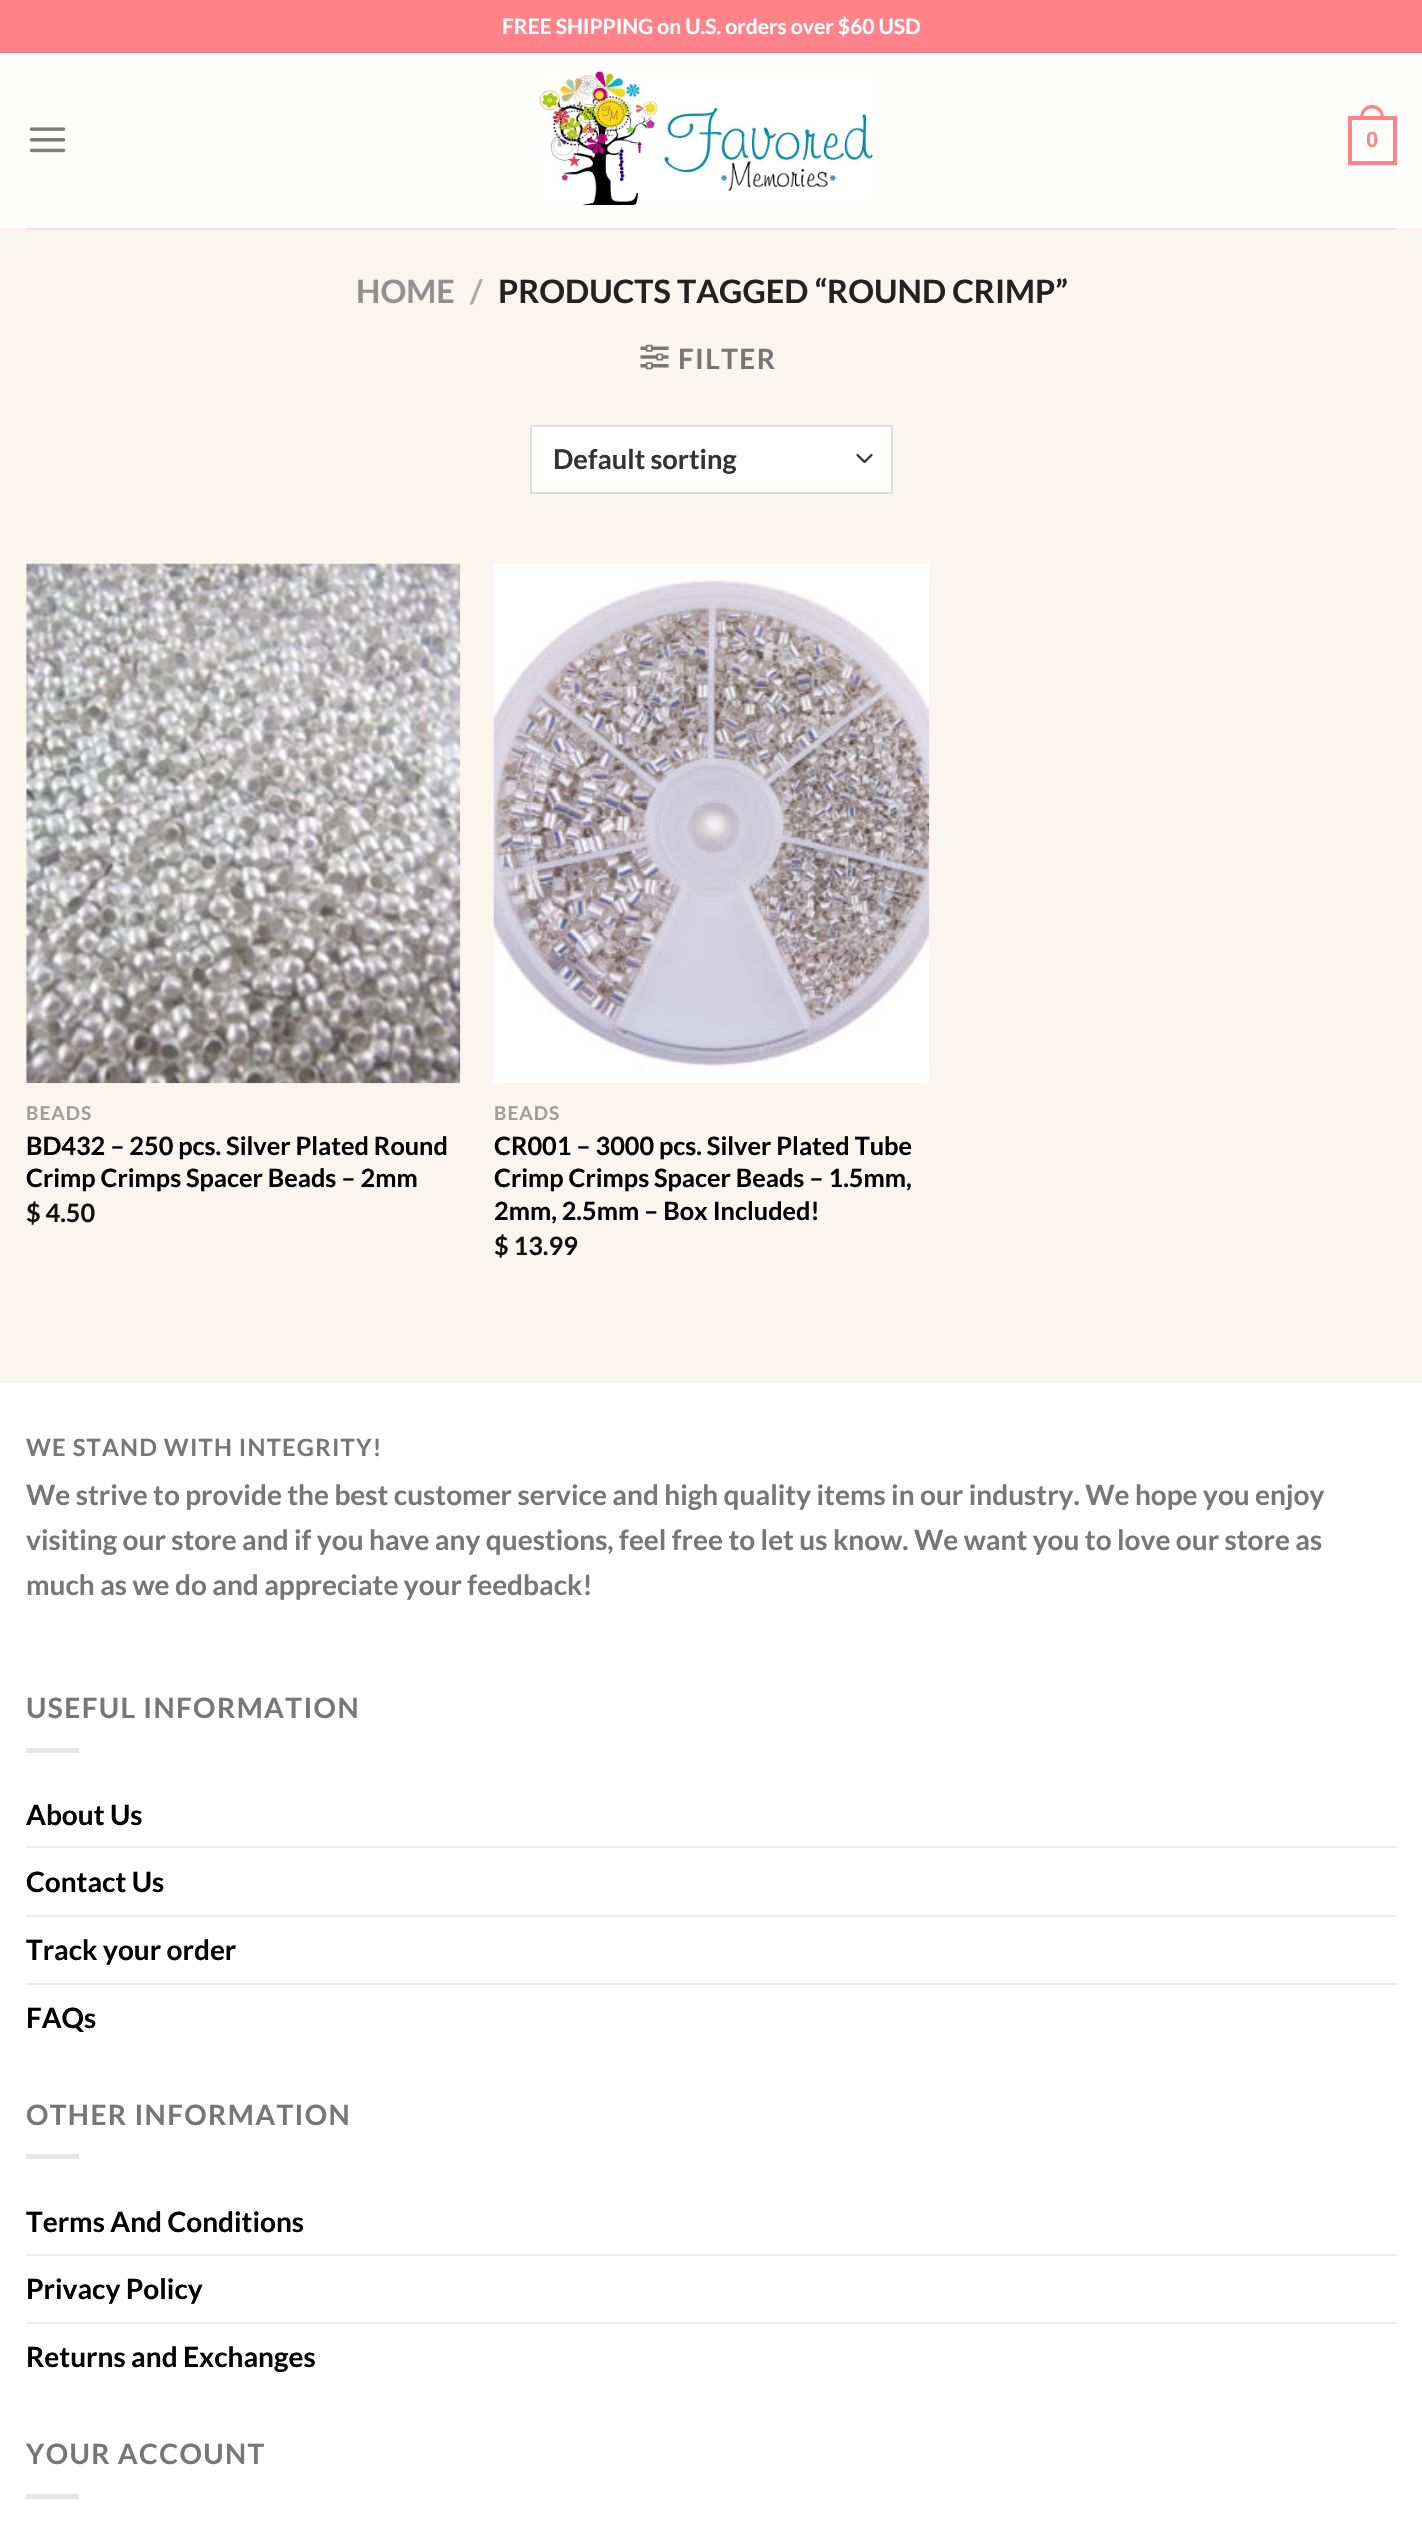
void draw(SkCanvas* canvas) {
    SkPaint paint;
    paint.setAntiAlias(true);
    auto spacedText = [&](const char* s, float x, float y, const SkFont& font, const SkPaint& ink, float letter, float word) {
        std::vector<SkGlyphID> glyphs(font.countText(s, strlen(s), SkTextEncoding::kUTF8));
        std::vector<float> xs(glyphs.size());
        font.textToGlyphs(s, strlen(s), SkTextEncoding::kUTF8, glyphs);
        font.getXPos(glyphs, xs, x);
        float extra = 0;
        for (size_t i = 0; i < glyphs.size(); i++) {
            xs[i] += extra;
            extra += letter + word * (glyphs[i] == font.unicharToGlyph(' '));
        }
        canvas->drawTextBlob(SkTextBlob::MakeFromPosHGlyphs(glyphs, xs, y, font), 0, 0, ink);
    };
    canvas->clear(0xFFFAF5ED);
    paint.setColor(0xFFFF8389);
    canvas->drawRect(SkRect::MakeXYWH(0, 0, 1422, 53), paint);
    SkFont font1(fontMgr->matchFamilyStyle("Lato", SkFontStyle::Bold()), 21);
    font1.setSubpixel(true);
    paint.setColor(0xFFFFFFFF);
    canvas->drawString("FREE SHIPPING on U.S. orders over $60 USD", 502, 34, font1, paint);
    paint.setColor(0xFFFEFEFD);
    canvas->drawRect(SkRect::MakeXYWH(0, 53, 1422, 175), paint);
    canvas->drawImageRect(SkImages::DeferredFromEncodedData(SkData::MakeFromFileName("img1.png")), SkRect::MakeXYWH(29, 127, 37, 26), SkSamplingOptions());
    canvas->drawImageRect(SkImages::DeferredFromEncodedData(SkData::MakeFromFileName("img2.png")), SkRect::MakeXYWH(539, 71, 334, 134), SkSamplingOptions());
    paint.setStyle(SkPaint::kStroke_Style);
    paint.setStrokeWidth(4);
    paint.setColor(0xFFFF8389);
    canvas->drawRect(SkRect::MakeXYWH(1350, 118, 45, 45), paint);
    paint.setStyle(SkPaint::kFill_Style);
    canvas->drawPath(SkPathBuilder(SkPathFillType::kEvenOdd).moveTo(1372, 105).cubicTo(1380.5f, 105, 1384, 111.5f, 1384, 119).lineTo(1360, 119).cubicTo(1360, 111.5f, 1363.5f, 105, 1372, 105).close().moveTo(1372, 108.5f).cubicTo(1378.5f, 108.5f, 1381, 113.5f, 1381, 119).lineTo(1363, 119).cubicTo(1363, 113.5f, 1365.5f, 108.5f, 1372, 108.5f).close().detach(), paint);
    SkFont font2(fontMgr->matchFamilyStyle("Liberation Sans", SkFontStyle::Bold()), 22);
    font2.setSubpixel(true);
    canvas->drawString("0", 1366, 147, font2, paint);
    paint.setColor(0xFFEDE8E1);
    canvas->drawRect(SkRect::MakeXYWH(26, 228, 1371, 2), paint);
    SkFont font3(fontMgr->matchFamilyStyle("Lato", SkFontStyle::Bold()), 32.25f);
    font3.setSubpixel(true);
    paint.setColor(0xFF92918F);
    canvas->drawString("HOME", 356, 303, font3, paint);
    paint.setColor(0xFFAEABA6);
    canvas->drawString("/", 470, 303, font3, paint);
    paint.setColor(0xFF222222);
    canvas->drawString("PRODUCTS TAGGED “ROUND CRIMP”", 498, 303, font3, paint);
    canvas->drawImageRect(SkImages::DeferredFromEncodedData(SkData::MakeFromFileName("img3.png")), SkRect::MakeXYWH(640, 344, 29, 26), SkSamplingOptions());
    SkFont font4(fontMgr->matchFamilyStyle("Lato", SkFontStyle::Bold()), 28);
    font4.setSubpixel(true);
    paint.setColor(0xFF777777);
    spacedText("FILTER", 678, 369, font4, paint, 1.4f, 0);
    paint.setColor(0xFFFFFFFF);
    canvas->drawRect(SkRect::MakeXYWH(532, 427, 359, 65), paint);
    paint.setStyle(SkPaint::kStroke_Style);
    paint.setStrokeWidth(2.3f);
    paint.setStrokeCap(SkPaint::kRound_Cap);
    paint.setStrokeJoin(SkPaint::kRound_Join);
    paint.setColor(0xFF333333);
    canvas->drawPath(SkPathBuilder().moveTo(857.5f, 455).lineTo(864.5f, 462).lineTo(871.5f, 455).detach(), paint);
    paint.setStrokeWidth(2);
    paint.setStrokeCap(SkPaint::kButt_Cap);
    paint.setStrokeJoin(SkPaint::kMiter_Join);
    paint.setColor(0xFFDDDDDD);
    canvas->drawRect(SkRect::MakeXYWH(531, 426, 361, 67), paint);
    SkFont font5(fontMgr->matchFamilyStyle("Lato", SkFontStyle::Bold()), 27.25f);
    font5.setSubpixel(true);
    paint.setStyle(SkPaint::kFill_Style);
    paint.setColor(0xFF333333);
    canvas->drawString("Default sorting", 553, 469, font5, paint);
    canvas->drawImageRect(SkImages::DeferredFromEncodedData(SkData::MakeFromFileName("img4.png")), SkRect::MakeXYWH(26, 563, 435, 521), SkSamplingOptions());
    SkFont font6(fontMgr->matchFamilyStyle("Lato", SkFontStyle::Bold()), 19);
    font6.setSubpixel(true);
    paint.setColor(0xFF9E9D9A);
    spacedText("BEADS", 26, 1120, font6, paint, 1, 0);
    SkFont font7(fontMgr->matchFamilyStyle("Lato", SkFontStyle::Bold()), 25.25f);
    font7.setSubpixel(true);
    paint.setColor(0xFF000000);
    canvas->drawString("BD432 – 250 pcs. Silver Plated Round", 26, 1155, font7, paint);
    canvas->drawString("Crimp Crimps Spacer Beads – 2mm", 26, 1187, font7, paint);
    paint.setColor(0xFF111111);
    canvas->drawString("$ 4.50", 26, 1222, font7, paint);
    canvas->drawImageRect(SkImages::DeferredFromEncodedData(SkData::MakeFromFileName("img5.png")), SkRect::MakeXYWH(493, 563, 437, 520), SkSamplingOptions());
    paint.setColor(0xFF9E9D9A);
    spacedText("BEADS", 494, 1120, font6, paint, 1, 0);
    paint.setColor(0xFF000000);
    canvas->drawString("CR001 – 3000 pcs. Silver Plated Tube", 494, 1155, font7, paint);
    canvas->drawString("Crimp Crimps Spacer Beads – 1.5mm,", 494, 1187, font7, paint);
    canvas->drawString("2mm, 2.5mm – Box Included!", 494, 1220, font7, paint);
    paint.setColor(0xFF111111);
    canvas->drawString("$ 13.99", 494, 1255, font7, paint);
    paint.setColor(0xFFFFFFFF);
    canvas->drawRect(SkRect::MakeXYWH(0, 1383, 1422, 1144), paint);
    paint.setColor(0xFFF2F2F2);
    canvas->drawRect(SkRect::MakeXYWH(0, 1381, 1422, 2), paint);
    SkFont font8(fontMgr->matchFamilyStyle("Lato", SkFontStyle::Bold()), 23.75f);
    font8.setSubpixel(true);
    paint.setColor(0xFF777777);
    spacedText("WE STAND WITH INTEGRITY!", 26, 1456, font8, paint, 1.2f, 0);
    canvas->drawString("We strive to provide the best customer service and high quality items in our industry. We hope you enjoy", 26, 1505, font4, paint);
    canvas->drawString("visiting our store and if you have any questions, feel free to let us know. We want you to love our store as", 26, 1550, font4, paint);
    canvas->drawString("much as we do and appreciate your feedback!", 26, 1595, font4, paint);
    spacedText("USEFUL INFORMATION", 26, 1718, font4, paint, 1.4f, 0);
    paint.setColor(0xFFE6E6E6);
    canvas->drawRect(SkRect::MakeXYWH(26, 1748, 53, 5), paint);
    paint.setColor(0xFF000000);
    canvas->drawString("About Us", 26, 1825, font4, paint);
    paint.setColor(0xFFECECEC);
    canvas->drawRect(SkRect::MakeXYWH(26, 1846, 1371, 2), paint);
    paint.setColor(0xFF000000);
    canvas->drawString("Contact Us", 26, 1892, font4, paint);
    paint.setColor(0xFFECECEC);
    canvas->drawRect(SkRect::MakeXYWH(26, 1915, 1371, 2), paint);
    paint.setColor(0xFF000000);
    canvas->drawString("Track your order", 26, 1960, font4, paint);
    paint.setColor(0xFFECECEC);
    canvas->drawRect(SkRect::MakeXYWH(26, 1983, 1371, 2), paint);
    paint.setColor(0xFF000000);
    canvas->drawString("FAQs", 26, 2028, font4, paint);
    paint.setColor(0xFF777777);
    spacedText("OTHER INFORMATION", 26, 2125, font4, paint, 1.4f, 0);
    paint.setColor(0xFFE6E6E6);
    canvas->drawRect(SkRect::MakeXYWH(26, 2154, 53, 5), paint);
    paint.setColor(0xFF000000);
    canvas->drawString("Terms And Conditions", 26, 2232, font4, paint);
    paint.setColor(0xFFECECEC);
    canvas->drawRect(SkRect::MakeXYWH(26, 2254, 1371, 2), paint);
    paint.setColor(0xFF000000);
    canvas->drawString("Privacy Policy", 26, 2299, font4, paint);
    paint.setColor(0xFFECECEC);
    canvas->drawRect(SkRect::MakeXYWH(26, 2322, 1371, 2), paint);
    paint.setColor(0xFF000000);
    canvas->drawString("Returns and Exchanges", 26, 2367, font4, paint);
    paint.setColor(0xFF777777);
    spacedText("YOUR ACCOUNT", 26, 2464, font4, paint, 1.4f, 0);
    paint.setColor(0xFFE6E6E6);
    canvas->drawRect(SkRect::MakeXYWH(26, 2494, 53, 5), paint);
}
